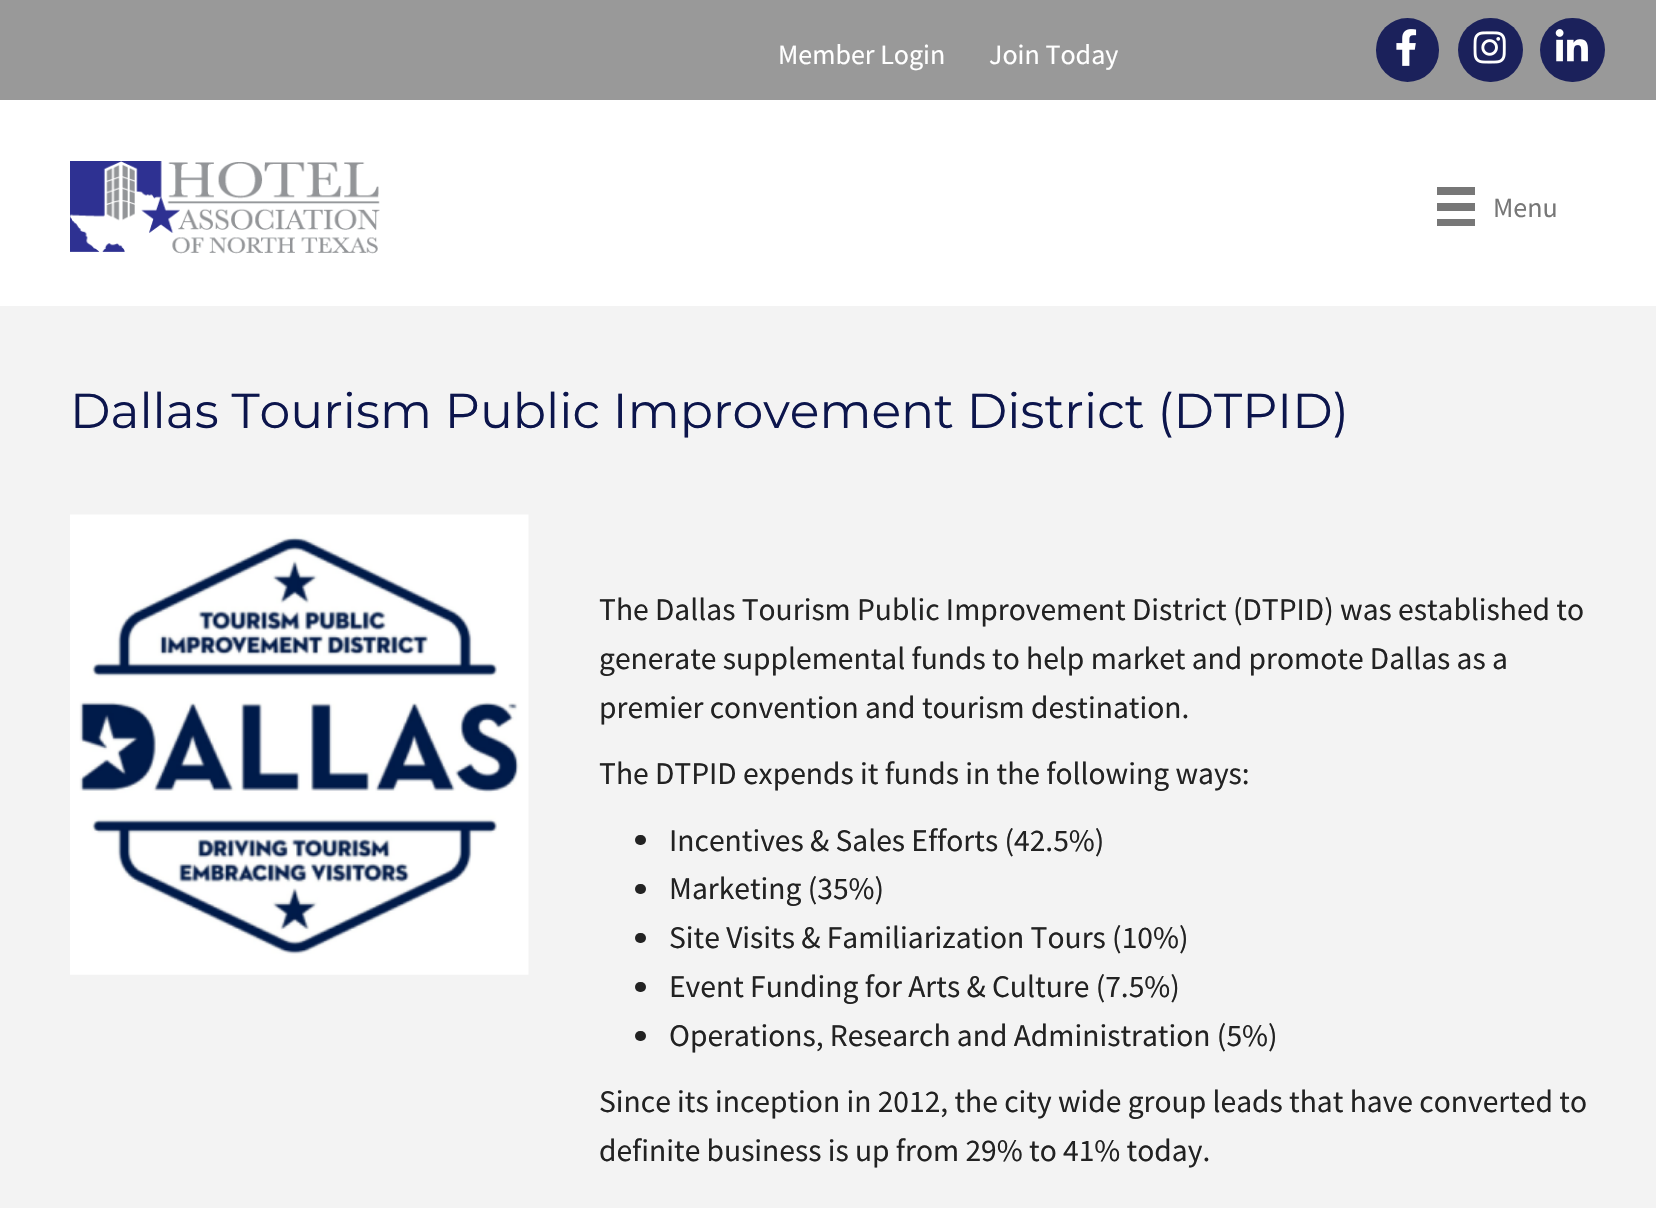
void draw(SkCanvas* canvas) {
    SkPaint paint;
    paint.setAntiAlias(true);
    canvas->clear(0xFF999999);
    SkFont font1(fontMgr->matchFamilyStyle("Source Sans Pro", SkFontStyle::Normal()), 28);
    font1.setSubpixel(true);
    paint.setColor(0xFFFFFFFF);
    canvas->drawString("Member Login", 778, 64, font1, paint);
    canvas->drawString("Join Today", 989, 64, font1, paint);
    paint.setColor(0xFF1B215B);
    canvas->drawRoundRect(SkRect::MakeXYWH(1376, 18, 63, 64), 31.5f, 31.5f, paint);
    canvas->drawImageRect(SkImages::DeferredFromEncodedData(SkData::MakeFromFileName("img1.png")), SkRect::MakeXYWH(1396, 29, 21, 37), SkSamplingOptions());
    canvas->drawRoundRect(SkRect::MakeXYWH(1458, 18, 65, 64), 32, 32, paint);
    canvas->drawImageRect(SkImages::DeferredFromEncodedData(SkData::MakeFromFileName("img2.png")), SkRect::MakeXYWH(1473, 31, 33, 33), SkSamplingOptions());
    canvas->drawRoundRect(SkRect::MakeXYWH(1540, 18, 65, 64), 32, 32, paint);
    canvas->drawImageRect(SkImages::DeferredFromEncodedData(SkData::MakeFromFileName("img3.png")), SkRect::MakeXYWH(1555, 29, 33, 33), SkSamplingOptions());
    paint.setColor(0xFFFFFFFF);
    canvas->drawRect(SkRect::MakeXYWH(0, 100, 1656, 206), paint);
    canvas->drawImageRect(SkImages::DeferredFromEncodedData(SkData::MakeFromFileName("img4.png")), SkRect::MakeXYWH(70, 161, 310, 93), SkSamplingOptions());
    paint.setColor(0xFF777777);
    canvas->drawRect(SkRect::MakeXYWH(1437, 187, 38, 8), paint);
    canvas->drawRect(SkRect::MakeXYWH(1437, 203, 38, 8), paint);
    canvas->drawRect(SkRect::MakeXYWH(1437, 219, 38, 7), paint);
    canvas->drawString("Menu", 1493, 217, font1, paint);
    paint.setColor(0xFFF3F3F3);
    canvas->drawRect(SkRect::MakeXYWH(0, 306, 1656, 902), paint);
    SkFont font2(fontMgr->matchFamilyStyle("Montserrat", SkFontStyle(100, SkFontStyle::kNormal_Width, SkFontStyle::kUpright_Slant)), 49);
    font2.setSubpixel(true);
    paint.setColor(0xFF0C154C);
    canvas->drawString("Dallas Tourism Public Improvement District (DTPID)", 70, 428, font2, paint);
    canvas->drawImageRect(SkImages::DeferredFromEncodedData(SkData::MakeFromFileName("img5.png")), SkRect::MakeXYWH(70, 514, 459, 461), SkSamplingOptions());
    SkFont font3(fontMgr->matchFamilyStyle("Source Sans Pro", SkFontStyle::Normal()), 31.5f);
    font3.setSubpixel(true);
    paint.setColor(0xFF222222);
    canvas->drawString("The Dallas Tourism Public Improvement District (DTPID) was established to", 599, 620, font3, paint);
    canvas->drawString("generate supplemental funds to help market and promote Dallas as a", 599, 669, font3, paint);
    canvas->drawString("premier convention and tourism destination.", 599, 718, font3, paint);
    canvas->drawString("The DTPID expends it funds in the following ways:", 599, 784, font3, paint);
    canvas->drawRoundRect(SkRect::MakeXYWH(635, 835, 11, 10), 5, 5, paint);
    canvas->drawString("Incentives & Sales Efforts (42.5%)", 669, 851, font3, paint);
    canvas->drawRoundRect(SkRect::MakeXYWH(635, 884, 11, 10), 5, 5, paint);
    canvas->drawString("Marketing (35%)", 669, 899, font3, paint);
    canvas->drawRoundRect(SkRect::MakeXYWH(635, 933, 11, 10), 5, 5, paint);
    canvas->drawString("Site Visits & Familiarization Tours (10%)", 669, 948, font3, paint);
    canvas->drawRoundRect(SkRect::MakeXYWH(635, 982, 11, 10), 5, 5, paint);
    canvas->drawString("Event Funding for Arts & Culture (7.5%)", 669, 997, font3, paint);
    canvas->drawRoundRect(SkRect::MakeXYWH(635, 1031, 11, 10), 5, 5, paint);
    canvas->drawString("Operations, Research and Administration (5%)", 669, 1046, font3, paint);
    canvas->drawString("Since its inception in 2012, the city wide group leads that have converted to", 599, 1112, font3, paint);
    canvas->drawString("definite business is up from 29% to 41% today.", 599, 1161, font3, paint);
}
